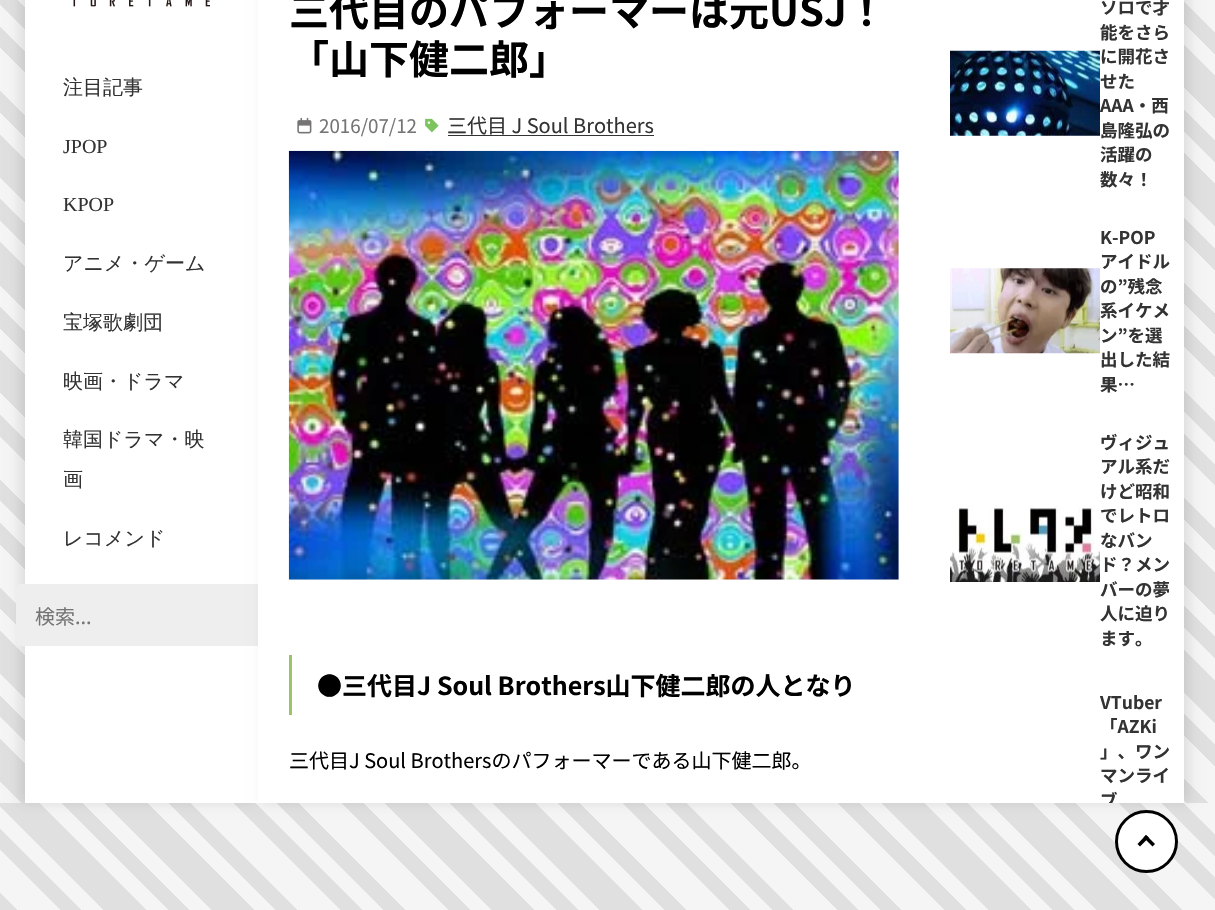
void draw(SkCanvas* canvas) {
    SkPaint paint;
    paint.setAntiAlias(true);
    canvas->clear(0xFFFFFFFF);
    {
        const SkColor colors[] = {0xFFF5F5F5, 0xFFF5F5F5, 0xFFE0E0E0, 0xFFE0E0E0, 0xFFF5F5F5, 0xFFF5F5F5, 0xFFE0E0E0, 0xFFE0E0E0, 0xFFF5F5F5, 0xFFF5F5F5, 0xFFE0E0E0, 0xFFE0E0E0, 0xFFF5F5F5, 0xFFF5F5F5, 0xFFE0E0E0, 0xFFE0E0E0, 0xFFF5F5F5, 0xFFF5F5F5, 0xFFE0E0E0, 0xFFE0E0E0, 0xFFF5F5F5, 0xFFF5F5F5, 0xFFE0E0E0, 0xFFE0E0E0, 0xFFF5F5F5, 0xFFF5F5F5, 0xFFE0E0E0, 0xFFE0E0E0, 0xFFF5F5F5, 0xFFF5F5F5, 0xFFE0E0E0, 0xFFE0E0E0, 0xFFF5F5F5, 0xFFF5F5F5, 0xFFE0E0E0, 0xFFE0E0E0, 0xFFF5F5F5, 0xFFF5F5F5, 0xFFE0E0E0, 0xFFE0E0E0, 0xFFF5F5F5, 0xFFF5F5F5, 0xFFE0E0E0, 0xFFE0E0E0, 0xFFF5F5F5, 0xFFF5F5F5, 0xFFE0E0E0, 0xFFE0E0E0, 0xFFF5F5F5, 0xFFF5F5F5, 0xFFE0E0E0, 0xFFE0E0E0, 0xFFF5F5F5, 0xFFF5F5F5, 0xFFE0E0E0, 0xFFE0E0E0, 0xFFF5F5F5, 0xFFF5F5F5, 0xFFE0E0E0, 0xFFE0E0E0, 0xFFF5F5F5, 0xFFF5F5F5, 0xFFE0E0E0, 0xFFE0E0E0, 0xFFF5F5F5, 0xFFF5F5F5, 0xFFE0E0E0, 0xFFE0E0E0, 0xFFF5F5F5, 0xFFF5F5F5, 0xFFE0E0E0, 0xFFE0E0E0, 0xFFF5F5F5, 0xFFF5F5F5, 0xFFE0E0E0, 0xFFE0E0E0, 0xFFF5F5F5, 0xFFF5F5F5, 0xFFE0E0E0, 0xFFE0E0E0, 0xFFF5F5F5, 0xFFF5F5F5, 0xFFE0E0E0, 0xFFE0E0E0, 0xFFF5F5F5, 0xFFF5F5F5, 0xFFE0E0E0, 0xFFE0E0E0, 0xFFF5F5F5, 0xFFF5F5F5, 0xFFE0E0E0, 0xFFE0E0E0, 0xFFF5F5F5, 0xFFF5F5F5, 0xFFE0E0E0, 0xFFE0E0E0, 0xFFF5F5F5, 0xFFF5F5F5, 0xFFE0E0E0, 0xFFE0E0E0, 0xFFF5F5F5, 0xFFF5F5F5, 0xFFE0E0E0, 0xFFE0E0E0, 0xFFF5F5F5, 0xFFF5F5F5, 0xFFE0E0E0, 0xFFE0E0E0, 0xFFF5F5F5, 0xFFF5F5F5, 0xFFE0E0E0, 0xFFE0E0E0, 0xFFF5F5F5, 0xFFF5F5F5, 0xFFE0E0E0, 0xFFE0E0E0, 0xFFF5F5F5, 0xFFF5F5F5, 0xFFE0E0E0, 0xFFE0E0E0, 0xFFF5F5F5, 0xFFF5F5F5, 0xFFE0E0E0, 0xFFE0E0E0, 0xFFF5F5F5, 0xFFF5F5F5, 0xFFE0E0E0, 0xFFE0E0E0, 0xFFF5F5F5, 0xFFF5F5F5, 0xFFE0E0E0, 0xFFE0E0E0, 0xFFF5F5F5, 0xFFF5F5F5, 0xFFE0E0E0, 0xFFE0E0E0, 0xFFF5F5F5, 0xFFF5F5F5, 0xFFE0E0E0, 0xFFE0E0E0, 0xFFF5F5F5, 0xFFF5F5F5, 0xFFE0E0E0, 0xFFE0E0E0, 0xFFF5F5F5, 0xFFF5F5F5, 0xFFE0E0E0, 0xFFE0E0E0, 0xFFF5F5F5, 0xFFF5F5F5, 0xFFE0E0E0, 0xFFE0E0E0, 0xFFF5F5F5, 0xFFF5F5F5, 0xFFE0E0E0, 0xFFE0E0E0, 0xFFF5F5F5, 0xFFF5F5F5, 0xFFE0E0E0, 0xFFE0E0E0, 0xFFF5F5F5, 0xFFF5F5F5, 0xFFE0E0E0, 0xFFE0E0E0, 0xFFF5F5F5, 0xFFF5F5F5, 0xFFE0E0E0, 0xFFE0E0E0, 0xFFF5F5F5, 0xFFF5F5F5, 0xFFE0E0E0, 0xFFE0E0E0, 0xFFF5F5F5, 0xFFF5F5F5, 0xFFE0E0E0, 0xFFE0E0E0, 0xFFF5F5F5, 0xFFF5F5F5, 0xFFE0E0E0, 0xFFE0E0E0, 0xFFF5F5F5, 0xFFF5F5F5, 0xFFE0E0E0, 0xFFE0E0E0, 0xFFF5F5F5, 0xFFF5F5F5, 0xFFE0E0E0, 0xFFE0E0E0, 0xFFF5F5F5, 0xFFF5F5F5, 0xFFE0E0E0, 0xFFE0E0E0, 0xFFF5F5F5, 0xFFF5F5F5, 0xFFE0E0E0, 0xFFE0E0E0, 0xFFF5F5F5, 0xFFF5F5F5, 0xFFE0E0E0, 0xFFE0E0E0, 0xFFF5F5F5, 0xFFF5F5F5, 0xFFE0E0E0, 0xFFE0E0E0, 0xFFF5F5F5, 0xFFF5F5F5, 0xFFE0E0E0, 0xFFE0E0E0, 0xFFF5F5F5, 0xFFF5F5F5, 0xFFE0E0E0, 0xFFE0E0E0, 0xFFF5F5F5, 0xFFF5F5F5, 0xFFE0E0E0, 0xFFE0E0E0, 0xFFF5F5F5, 0xFFF5F5F5, 0xFFE0E0E0, 0xFFE0E0E0, 0xFFF5F5F5, 0xFFF5F5F5, 0xFFE0E0E0, 0xFFE0E0E0, 0xFFF5F5F5, 0xFFF5F5F5, 0xFFE0E0E0, 0xFFE0E0E0, 0xFFF5F5F5, 0xFFF5F5F5, 0xFFE0E0E0, 0xFFE0E0E0, 0xFFF5F5F5, 0xFFF5F5F5, 0xFFE0E0E0, 0xFFE0E0E0, 0xFFF5F5F5, 0xFFF5F5F5, 0xFFE0E0E0, 0xFFE0E0E0, 0xFFF5F5F5, 0xFFF5F5F5, 0xFFE0E0E0, 0xFFE0E0E0};
        const float stops[] = {0, 0.01f, 0.01f, 0.02f, 0.02f, 0.02f, 0.02f, 0.03f, 0.03f, 0.04f, 0.04f, 0.05f, 0.05f, 0.06f, 0.06f, 0.07f, 0.07f, 0.07f, 0.07f, 0.08f, 0.08f, 0.09f, 0.09f, 0.1f, 0.1f, 0.11f, 0.11f, 0.11f, 0.11f, 0.12f, 0.12f, 0.13f, 0.13f, 0.14f, 0.14f, 0.15f, 0.15f, 0.16f, 0.16f, 0.16f, 0.16f, 0.17f, 0.17f, 0.18f, 0.18f, 0.19f, 0.19f, 0.2f, 0.2f, 0.2f, 0.2f, 0.21f, 0.21f, 0.22f, 0.22f, 0.23f, 0.23f, 0.24f, 0.24f, 0.25f, 0.25f, 0.25f, 0.25f, 0.26f, 0.26f, 0.27f, 0.27f, 0.28f, 0.28f, 0.29f, 0.29f, 0.3f, 0.3f, 0.3f, 0.3f, 0.31f, 0.31f, 0.32f, 0.32f, 0.33f, 0.33f, 0.34f, 0.34f, 0.34f, 0.34f, 0.35f, 0.35f, 0.36f, 0.36f, 0.37f, 0.37f, 0.38f, 0.38f, 0.39f, 0.39f, 0.39f, 0.39f, 0.4f, 0.4f, 0.41f, 0.41f, 0.42f, 0.42f, 0.43f, 0.43f, 0.43f, 0.43f, 0.44f, 0.44f, 0.45f, 0.45f, 0.46f, 0.46f, 0.47f, 0.47f, 0.48f, 0.48f, 0.48f, 0.48f, 0.49f, 0.49f, 0.5f, 0.5f, 0.51f, 0.51f, 0.52f, 0.52f, 0.52f, 0.52f, 0.53f, 0.53f, 0.54f, 0.54f, 0.55f, 0.55f, 0.56f, 0.56f, 0.57f, 0.57f, 0.57f, 0.57f, 0.58f, 0.58f, 0.59f, 0.59f, 0.6f, 0.6f, 0.61f, 0.61f, 0.61f, 0.61f, 0.62f, 0.62f, 0.63f, 0.63f, 0.64f, 0.64f, 0.65f, 0.65f, 0.66f, 0.66f, 0.66f, 0.66f, 0.67f, 0.67f, 0.68f, 0.68f, 0.69f, 0.69f, 0.7f, 0.7f, 0.7f, 0.7f, 0.71f, 0.71f, 0.72f, 0.72f, 0.73f, 0.73f, 0.74f, 0.74f, 0.75f, 0.75f, 0.75f, 0.75f, 0.76f, 0.76f, 0.77f, 0.77f, 0.78f, 0.78f, 0.79f, 0.79f, 0.8f, 0.8f, 0.8f, 0.8f, 0.81f, 0.81f, 0.82f, 0.82f, 0.83f, 0.83f, 0.84f, 0.84f, 0.84f, 0.84f, 0.85f, 0.85f, 0.86f, 0.86f, 0.87f, 0.87f, 0.88f, 0.88f, 0.89f, 0.89f, 0.89f, 0.89f, 0.9f, 0.9f, 0.91f, 0.91f, 0.92f, 0.92f, 0.93f, 0.93f, 0.93f, 0.93f, 0.94f, 0.94f, 0.95f, 0.95f, 0.96f, 0.96f, 0.97f, 0.97f, 0.98f, 0.98f, 0.98f, 0.98f, 0.99f, 0.99f, 1};
        const SkPoint ends[] = {{76, 879}, {1155, -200}};
        paint.setShader(SkGradientShader::MakeLinear(ends, colors, stops, 244, SkTileMode::kClamp));
        paint.setAlpha(255);
    }
    canvas->drawRect(SkRect::MakeXYWH(0, 0, 1215, 803), paint);
    {
        const SkColor colors[] = {0xFFF5F5F5, 0xFFF5F5F5, 0xFFE0E0E0, 0xFFE0E0E0, 0xFFF5F5F5, 0xFFF5F5F5, 0xFFE0E0E0, 0xFFE0E0E0, 0xFFF5F5F5, 0xFFF5F5F5, 0xFFE0E0E0, 0xFFE0E0E0, 0xFFF5F5F5, 0xFFF5F5F5, 0xFFE0E0E0, 0xFFE0E0E0, 0xFFF5F5F5, 0xFFF5F5F5, 0xFFE0E0E0, 0xFFE0E0E0, 0xFFF5F5F5, 0xFFF5F5F5, 0xFFE0E0E0, 0xFFE0E0E0, 0xFFF5F5F5, 0xFFF5F5F5, 0xFFE0E0E0, 0xFFE0E0E0, 0xFFF5F5F5, 0xFFF5F5F5, 0xFFE0E0E0, 0xFFE0E0E0, 0xFFF5F5F5, 0xFFF5F5F5, 0xFFE0E0E0, 0xFFE0E0E0, 0xFFF5F5F5, 0xFFF5F5F5, 0xFFE0E0E0, 0xFFE0E0E0, 0xFFF5F5F5, 0xFFF5F5F5, 0xFFE0E0E0, 0xFFE0E0E0, 0xFFF5F5F5, 0xFFF5F5F5, 0xFFE0E0E0, 0xFFE0E0E0, 0xFFF5F5F5, 0xFFF5F5F5, 0xFFE0E0E0, 0xFFE0E0E0, 0xFFF5F5F5, 0xFFF5F5F5, 0xFFE0E0E0, 0xFFE0E0E0, 0xFFF5F5F5, 0xFFF5F5F5, 0xFFE0E0E0, 0xFFE0E0E0, 0xFFF5F5F5, 0xFFF5F5F5, 0xFFE0E0E0, 0xFFE0E0E0, 0xFFF5F5F5, 0xFFF5F5F5, 0xFFE0E0E0, 0xFFE0E0E0, 0xFFF5F5F5, 0xFFF5F5F5, 0xFFE0E0E0, 0xFFE0E0E0, 0xFFF5F5F5, 0xFFF5F5F5, 0xFFE0E0E0, 0xFFE0E0E0, 0xFFF5F5F5, 0xFFF5F5F5, 0xFFE0E0E0, 0xFFE0E0E0, 0xFFF5F5F5, 0xFFF5F5F5, 0xFFE0E0E0, 0xFFE0E0E0, 0xFFF5F5F5, 0xFFF5F5F5, 0xFFE0E0E0, 0xFFE0E0E0, 0xFFF5F5F5, 0xFFF5F5F5, 0xFFE0E0E0, 0xFFE0E0E0, 0xFFF5F5F5, 0xFFF5F5F5, 0xFFE0E0E0, 0xFFE0E0E0, 0xFFF5F5F5, 0xFFF5F5F5, 0xFFE0E0E0, 0xFFE0E0E0, 0xFFF5F5F5, 0xFFF5F5F5, 0xFFE0E0E0, 0xFFE0E0E0, 0xFFF5F5F5, 0xFFF5F5F5, 0xFFE0E0E0, 0xFFE0E0E0, 0xFFF5F5F5, 0xFFF5F5F5, 0xFFE0E0E0, 0xFFE0E0E0, 0xFFF5F5F5, 0xFFF5F5F5, 0xFFE0E0E0, 0xFFE0E0E0, 0xFFF5F5F5, 0xFFF5F5F5, 0xFFE0E0E0, 0xFFE0E0E0, 0xFFF5F5F5, 0xFFF5F5F5, 0xFFE0E0E0, 0xFFE0E0E0, 0xFFF5F5F5, 0xFFF5F5F5, 0xFFE0E0E0, 0xFFE0E0E0, 0xFFF5F5F5, 0xFFF5F5F5, 0xFFE0E0E0, 0xFFE0E0E0, 0xFFF5F5F5, 0xFFF5F5F5, 0xFFE0E0E0, 0xFFE0E0E0, 0xFFF5F5F5, 0xFFF5F5F5, 0xFFE0E0E0, 0xFFE0E0E0, 0xFFF5F5F5, 0xFFF5F5F5, 0xFFE0E0E0, 0xFFE0E0E0, 0xFFF5F5F5, 0xFFF5F5F5, 0xFFE0E0E0, 0xFFE0E0E0, 0xFFF5F5F5, 0xFFF5F5F5, 0xFFE0E0E0, 0xFFE0E0E0, 0xFFF5F5F5, 0xFFF5F5F5, 0xFFE0E0E0, 0xFFE0E0E0, 0xFFF5F5F5, 0xFFF5F5F5, 0xFFE0E0E0, 0xFFE0E0E0, 0xFFF5F5F5, 0xFFF5F5F5, 0xFFE0E0E0, 0xFFE0E0E0, 0xFFF5F5F5, 0xFFF5F5F5, 0xFFE0E0E0, 0xFFE0E0E0, 0xFFF5F5F5, 0xFFF5F5F5, 0xFFE0E0E0, 0xFFE0E0E0, 0xFFF5F5F5, 0xFFF5F5F5, 0xFFE0E0E0, 0xFFE0E0E0, 0xFFF5F5F5, 0xFFF5F5F5, 0xFFE0E0E0, 0xFFE0E0E0, 0xFFF5F5F5, 0xFFF5F5F5, 0xFFE0E0E0, 0xFFE0E0E0, 0xFFF5F5F5, 0xFFF5F5F5, 0xFFE0E0E0, 0xFFE0E0E0, 0xFFF5F5F5, 0xFFF5F5F5, 0xFFE0E0E0, 0xFFE0E0E0, 0xFFF5F5F5, 0xFFF5F5F5, 0xFFE0E0E0, 0xFFE0E0E0, 0xFFF5F5F5, 0xFFF5F5F5, 0xFFE0E0E0, 0xFFE0E0E0, 0xFFF5F5F5, 0xFFF5F5F5, 0xFFE0E0E0, 0xFFE0E0E0, 0xFFF5F5F5, 0xFFF5F5F5, 0xFFE0E0E0, 0xFFE0E0E0, 0xFFF5F5F5, 0xFFF5F5F5, 0xFFE0E0E0, 0xFFE0E0E0, 0xFFF5F5F5, 0xFFF5F5F5, 0xFFE0E0E0, 0xFFE0E0E0, 0xFFF5F5F5, 0xFFF5F5F5, 0xFFE0E0E0, 0xFFE0E0E0, 0xFFF5F5F5, 0xFFF5F5F5, 0xFFE0E0E0, 0xFFE0E0E0, 0xFFF5F5F5, 0xFFF5F5F5, 0xFFE0E0E0, 0xFFE0E0E0, 0xFFF5F5F5, 0xFFF5F5F5, 0xFFE0E0E0, 0xFFE0E0E0, 0xFFF5F5F5, 0xFFF5F5F5, 0xFFE0E0E0, 0xFFE0E0E0, 0xFFF5F5F5, 0xFFF5F5F5, 0xFFE0E0E0, 0xFFE0E0E0, 0xFFF5F5F5, 0xFFF5F5F5, 0xFFE0E0E0, 0xFFE0E0E0};
        const float stops[] = {0, 0.01f, 0.01f, 0.02f, 0.02f, 0.02f, 0.02f, 0.03f, 0.03f, 0.04f, 0.04f, 0.05f, 0.05f, 0.06f, 0.06f, 0.07f, 0.07f, 0.07f, 0.07f, 0.08f, 0.08f, 0.09f, 0.09f, 0.1f, 0.1f, 0.11f, 0.11f, 0.11f, 0.11f, 0.12f, 0.12f, 0.13f, 0.13f, 0.14f, 0.14f, 0.15f, 0.15f, 0.16f, 0.16f, 0.16f, 0.16f, 0.17f, 0.17f, 0.18f, 0.18f, 0.19f, 0.19f, 0.2f, 0.2f, 0.2f, 0.2f, 0.21f, 0.21f, 0.22f, 0.22f, 0.23f, 0.23f, 0.24f, 0.24f, 0.25f, 0.25f, 0.25f, 0.25f, 0.26f, 0.26f, 0.27f, 0.27f, 0.28f, 0.28f, 0.29f, 0.29f, 0.3f, 0.3f, 0.3f, 0.3f, 0.31f, 0.31f, 0.32f, 0.32f, 0.33f, 0.33f, 0.34f, 0.34f, 0.34f, 0.34f, 0.35f, 0.35f, 0.36f, 0.36f, 0.37f, 0.37f, 0.38f, 0.38f, 0.39f, 0.39f, 0.39f, 0.39f, 0.4f, 0.4f, 0.41f, 0.41f, 0.42f, 0.42f, 0.43f, 0.43f, 0.43f, 0.43f, 0.44f, 0.44f, 0.45f, 0.45f, 0.46f, 0.46f, 0.47f, 0.47f, 0.48f, 0.48f, 0.48f, 0.48f, 0.49f, 0.49f, 0.5f, 0.5f, 0.51f, 0.51f, 0.52f, 0.52f, 0.52f, 0.52f, 0.53f, 0.53f, 0.54f, 0.54f, 0.55f, 0.55f, 0.56f, 0.56f, 0.57f, 0.57f, 0.57f, 0.57f, 0.58f, 0.58f, 0.59f, 0.59f, 0.6f, 0.6f, 0.61f, 0.61f, 0.61f, 0.61f, 0.62f, 0.62f, 0.63f, 0.63f, 0.64f, 0.64f, 0.65f, 0.65f, 0.66f, 0.66f, 0.66f, 0.66f, 0.67f, 0.67f, 0.68f, 0.68f, 0.69f, 0.69f, 0.7f, 0.7f, 0.7f, 0.7f, 0.71f, 0.71f, 0.72f, 0.72f, 0.73f, 0.73f, 0.74f, 0.74f, 0.75f, 0.75f, 0.75f, 0.75f, 0.76f, 0.76f, 0.77f, 0.77f, 0.78f, 0.78f, 0.79f, 0.79f, 0.8f, 0.8f, 0.8f, 0.8f, 0.81f, 0.81f, 0.82f, 0.82f, 0.83f, 0.83f, 0.84f, 0.84f, 0.84f, 0.84f, 0.85f, 0.85f, 0.86f, 0.86f, 0.87f, 0.87f, 0.88f, 0.88f, 0.89f, 0.89f, 0.89f, 0.89f, 0.9f, 0.9f, 0.91f, 0.91f, 0.92f, 0.92f, 0.93f, 0.93f, 0.93f, 0.93f, 0.94f, 0.94f, 0.95f, 0.95f, 0.96f, 0.96f, 0.97f, 0.97f, 0.98f, 0.98f, 0.98f, 0.98f, 0.99f, 0.99f, 1};
        const SkPoint ends[] = {{76, 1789}, {1155, 710}};
        paint.setShader(SkGradientShader::MakeLinear(ends, colors, stops, 244, SkTileMode::kClamp));
        paint.setAlpha(255);
    }
    canvas->drawRect(SkRect::MakeXYWH(0, 803, 1215, 107), paint);
    paint.setShader(nullptr);
    paint.setColor(0x1A000000);
    paint.setMaskFilter(SkMaskFilter::MakeBlur(kNormal_SkBlurStyle, 6));
    canvas->drawRect(SkRect::MakeXYWH(20, -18, 233, 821), paint);
    paint.setMaskFilter(nullptr);
    paint.setColor(0xFFFFFFFF);
    canvas->drawRect(SkRect::MakeXYWH(25, 0, 233, 803), paint);
    canvas->drawImageRect(SkImages::DeferredFromEncodedData(SkData::MakeFromFileName("img1.png")), SkRect::MakeXYWH(73, 0, 137, 7), SkSamplingOptions());
    SkFont font1(fontMgr->matchFamilyStyle("WenQuanYi Zen Hei", SkFontStyle(500, SkFontStyle::kNormal_Width, SkFontStyle::kUpright_Slant)), 20);
    font1.setSubpixel(true);
    paint.setColor(0xFF333333);
    canvas->drawString("注目記事", 63, 94, font1, paint);
    SkFont font2(fontMgr->matchFamilyStyle("Liberation Serif", SkFontStyle::Normal()), 20);
    font2.setSubpixel(true);
    canvas->drawString("JPOP", 63, 153, font2, paint);
    canvas->drawString("KPOP", 63, 211, font2, paint);
    canvas->drawString("アニメ・ゲーム", 63, 270, font1, paint);
    canvas->drawString("宝塚歌劇団", 63, 329, font1, paint);
    canvas->drawString("映画・ドラマ", 63, 388, font1, paint);
    canvas->drawString("韓国ドラマ・映", 63, 446, font1, paint);
    canvas->drawString("画", 63, 486, font1, paint);
    canvas->drawString("レコメンド", 63, 545, font1, paint);
    paint.setColor(0xFFEEEEEE);
    canvas->drawPath(SkPathBuilder().moveTo(21, 584).lineTo(266, 584).lineTo(266, 646).lineTo(21, 646).cubicTo(18, 646, 16, 644, 16, 641).lineTo(16, 589).cubicTo(16, 586, 18, 584, 21, 584).close().detach(), paint);
    SkFont font3(fontMgr->matchFamilyStyle("Noto Sans JP", SkFontStyle::Normal()), 20);
    font3.setSubpixel(true);
    paint.setColor(0xFF757575);
    canvas->drawString("検索...", 35, 624, font3, paint);
    paint.setColor(0x1A000000);
    paint.setMaskFilter(SkMaskFilter::MakeBlur(kNormal_SkBlurStyle, 6));
    canvas->drawRect(SkRect::MakeXYWH(263, -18, 926, 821), paint);
    paint.setMaskFilter(nullptr);
    paint.setColor(0xFFFFFFFF);
    canvas->drawRect(SkRect::MakeXYWH(258, 0, 926, 803), paint);
    SkFont font4(fontMgr->matchFamilyStyle("Noto Sans JP", SkFontStyle::Bold()), 40);
    font4.setSubpixel(true);
    paint.setColor(0xFF000000);
    canvas->drawString("三代目のパフォーマーは元USJ！", 289, 26, font4, paint);
    canvas->drawString("「山下健二郎」", 289, 74, font4, paint);
    canvas->drawImageRect(SkImages::DeferredFromEncodedData(SkData::MakeFromFileName("img2.png")), SkRect::MakeXYWH(297, 117, 15, 17), SkSamplingOptions());
    SkFont font5(fontMgr->matchFamilyStyle("Noto Sans JP", SkFontStyle::Normal()), 18.75f);
    font5.setSubpixel(true);
    paint.setColor(0xFF757575);
    canvas->drawString("2016/07/12", 319, 133, font5, paint);
    canvas->drawImageRect(SkImages::DeferredFromEncodedData(SkData::MakeFromFileName("img3.png")), SkRect::MakeXYWH(425, 118, 14, 15), SkSamplingOptions());
    paint.setColor(0xFF333333);
    canvas->drawString("三代目 J Soul Brothers", 447, 133, font3, paint);
    canvas->drawRect(SkRect::MakeXYWH(448, 135, 206, 1), paint);
    paint.setColor(0xFFF5F5F5);
    canvas->drawRect(SkRect::MakeXYWH(289, 151, 610, 429), paint);
    canvas->drawImageRect(SkImages::DeferredFromEncodedData(SkData::MakeFromFileName("img4.png")), SkRect::MakeXYWH(288, 150, 611, 430), SkSamplingOptions());
    paint.setColor(0xFF9BC464);
    canvas->drawRect(SkRect::MakeXYWH(289, 655, 3, 60), paint);
    SkFont font6(fontMgr->matchFamilyStyle("Noto Sans JP", SkFontStyle::Bold()), 25);
    font6.setSubpixel(true);
    paint.setColor(0xFF000000);
    canvas->drawString("●三代目J Soul Brothers山下健二郎の人となり", 317, 695, font6, paint);
    canvas->drawString("三代目J Soul Brothersのパフォーマーである山下健二郎。", 289, 768, font3, paint);
    paint.setColor(0xFFFFFFFF);
    canvas->drawCircle(1146.5f, 841.5f, 30, paint);
    paint.setStyle(SkPaint::kStroke_Style);
    paint.setStrokeWidth(3);
    paint.setColor(0xFF000000);
    canvas->drawCircle(1146.5f, 841.5f, 30, paint);
    paint.setStyle(SkPaint::kFill_Style);
    canvas->drawPath(SkPathBuilder().moveTo(1137.5f, 844).lineTo(1146, 835).lineTo(1149, 837.5f).lineTo(1140, 846.5f).close().detach(), paint);
    canvas->drawPath(SkPathBuilder().moveTo(1143.5f, 837.5f).lineTo(1146, 835).lineTo(1155, 844).lineTo(1152.5f, 846.5f).close().detach(), paint);
    canvas->drawImageRect(SkImages::DeferredFromEncodedData(SkData::MakeFromFileName("img5.png")), SkRect::MakeXYWH(950, 50, 150, 86), SkSamplingOptions());
    SkFont font7(fontMgr->matchFamilyStyle("Noto Sans JP", SkFontStyle::Bold()), 17.5f);
    font7.setSubpixel(true);
    paint.setColor(0xFF333333);
    canvas->drawString("ソロで才", 1100, 14, font7, paint);
    canvas->drawString("能をさら", 1100, 39, font7, paint);
    canvas->drawString("に開花さ", 1100, 63, font7, paint);
    canvas->drawString("せた", 1100, 88, font7, paint);
    canvas->drawString("AAA・西", 1100, 112, font7, paint);
    canvas->drawString("島隆弘の", 1100, 137, font7, paint);
    canvas->drawString("活躍の", 1100, 161, font7, paint);
    canvas->drawString("数々！", 1100, 186, font7, paint);
    canvas->drawImageRect(SkImages::DeferredFromEncodedData(SkData::MakeFromFileName("img6.png")), SkRect::MakeXYWH(950, 268, 150, 86), SkSamplingOptions());
    canvas->drawString("K-POP", 1100, 244, font7, paint);
    canvas->drawString("アイドル", 1100, 268, font7, paint);
    canvas->drawString("の”残念", 1100, 293, font7, paint);
    canvas->drawString("系イケメ", 1100, 317, font7, paint);
    canvas->drawString("ン”を選", 1100, 342, font7, paint);
    canvas->drawString("出した結", 1100, 366, font7, paint);
    canvas->drawString("果…", 1100, 391, font7, paint);
    canvas->drawImageRect(SkImages::DeferredFromEncodedData(SkData::MakeFromFileName("img7.png")), SkRect::MakeXYWH(950, 505, 150, 77), SkSamplingOptions());
    canvas->drawString("ヴィジュ", 1100, 449, font7, paint);
    canvas->drawString("アル系だ", 1100, 473, font7, paint);
    canvas->drawString("けど昭和", 1100, 498, font7, paint);
    canvas->drawString("でレトロ", 1100, 522, font7, paint);
    canvas->drawString("なバン", 1100, 547, font7, paint);
    canvas->drawString("ド？メン", 1100, 571, font7, paint);
    canvas->drawString("バーの夢", 1100, 596, font7, paint);
    canvas->drawString("人に迫り", 1100, 620, font7, paint);
    canvas->drawString("ます。", 1100, 645, font7, paint);
    canvas->drawString("VTuber", 1100, 709, font7, paint);
    canvas->drawString("「AZKi", 1100, 733, font7, paint);
    canvas->drawString("」、ワン", 1100, 758, font7, paint);
    canvas->drawString("マンライ", 1100, 782, font7, paint);
    canvas->save();
    canvas->clipRect(SkRect::MakeXYWH(1100, 690, 71, 113));
    canvas->drawString("ブ", 1100, 807, font7, paint);
    canvas->restore();
}
